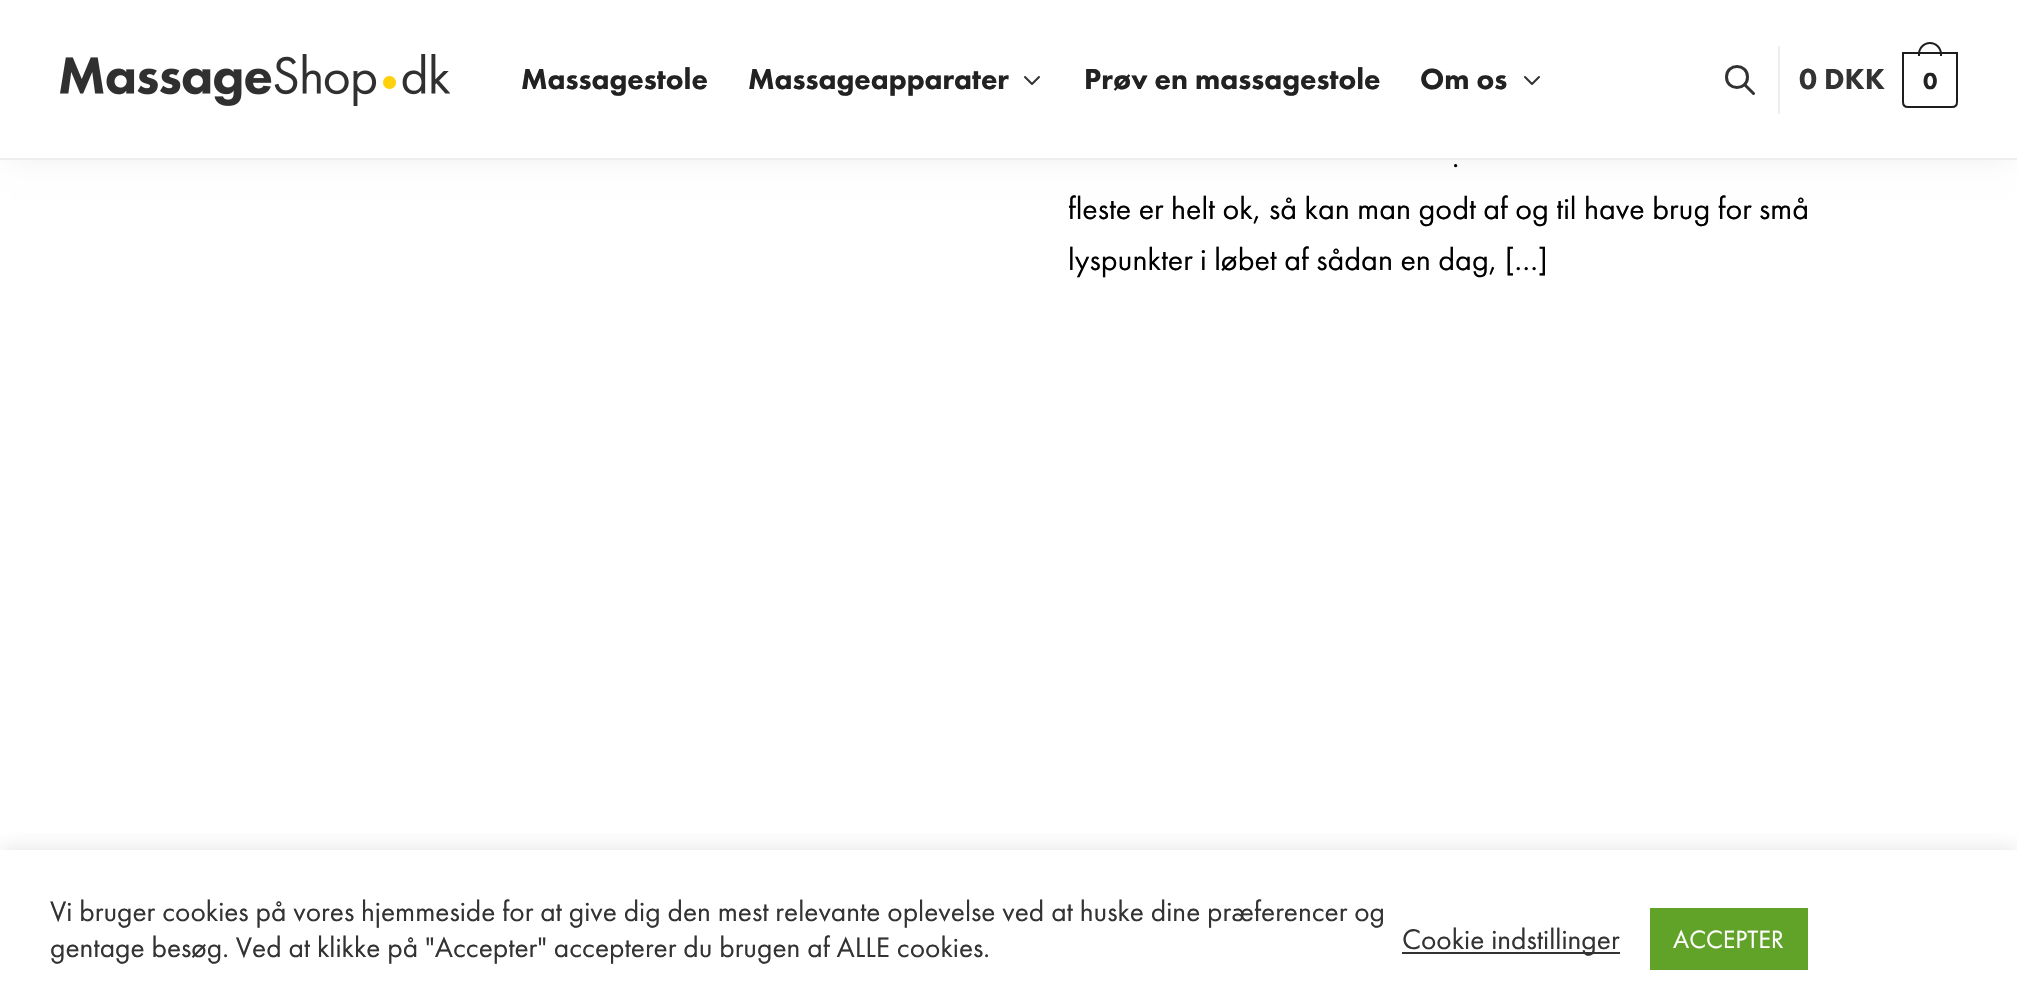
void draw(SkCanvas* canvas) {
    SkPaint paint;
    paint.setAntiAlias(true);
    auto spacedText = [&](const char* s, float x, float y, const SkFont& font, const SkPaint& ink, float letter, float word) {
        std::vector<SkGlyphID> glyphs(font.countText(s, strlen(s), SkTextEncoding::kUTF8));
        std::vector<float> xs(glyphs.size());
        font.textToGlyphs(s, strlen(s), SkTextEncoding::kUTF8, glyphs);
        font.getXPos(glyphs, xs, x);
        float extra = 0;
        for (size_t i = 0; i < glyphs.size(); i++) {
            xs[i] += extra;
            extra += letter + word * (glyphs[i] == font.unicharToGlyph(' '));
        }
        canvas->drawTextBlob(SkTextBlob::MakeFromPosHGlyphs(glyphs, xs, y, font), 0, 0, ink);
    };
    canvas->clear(0xFFFFFFFF);
    paint.setColor(0x14000000);
    paint.setMaskFilter(SkMaskFilter::MakeBlur(kNormal_SkBlurStyle, 15));
    canvas->drawRect(SkRect::MakeXYWH(10, 16, 1998, 140), paint);
    paint.setMaskFilter(nullptr);
    paint.setColor(0xFFFFFFFF);
    canvas->drawRect(SkRect::MakeXYWH(0, 0, 2017, 158), paint);
    paint.setColor(0xFFEEEEEE);
    canvas->drawRect(SkRect::MakeXYWH(0, 158, 2017, 2), paint);
    canvas->drawImageRect(SkImages::DeferredFromEncodedData(SkData::MakeFromFileName("img1.png")), SkRect::MakeXYWH(60, 54, 390, 52), SkSamplingOptions());
    SkFont font1(fontMgr->matchFamilyStyle("Futura PT", SkFontStyle(900, SkFontStyle::kNormal_Width, SkFontStyle::kUpright_Slant)), 30);
    font1.setSubpixel(true);
    paint.setColor(0xFF222222);
    canvas->drawString("Massagestole", 521, 89, font1, paint);
    canvas->drawString("Massageapparater", 748, 89, font1, paint);
    paint.setStyle(SkPaint::kStroke_Style);
    paint.setStrokeWidth(2);
    paint.setStrokeCap(SkPaint::kRound_Cap);
    paint.setStrokeJoin(SkPaint::kRound_Join);
    paint.setColor(0xFF323232);
    canvas->drawPath(SkPathBuilder().moveTo(1039, 77).lineTo(1032, 84).lineTo(1025, 77).detach(), paint);
    paint.setStyle(SkPaint::kFill_Style);
    paint.setColor(0xFF222222);
    canvas->drawString("Prøv en massagestole", 1084, 89, font1, paint);
    canvas->drawString("Om os", 1420, 89, font1, paint);
    paint.setStyle(SkPaint::kStroke_Style);
    paint.setColor(0xFF323232);
    canvas->drawPath(SkPathBuilder().moveTo(1539, 77).lineTo(1532, 84).lineTo(1525, 77).detach(), paint);
    paint.setStrokeWidth(3);
    canvas->drawPath(SkPathBuilder().moveTo(1753.5f, 93.5f).lineTo(1744.5f, 84.5f).moveTo(1747.5f, 77).cubicTo(1747.5f, 91, 1726.5f, 91, 1726.5f, 77).cubicTo(1726.5f, 63, 1747.5f, 63, 1747.5f, 77).close().detach(), paint);
    paint.setStyle(SkPaint::kFill_Style);
    paint.setColor(0xFFEEEEEE);
    canvas->drawRect(SkRect::MakeXYWH(1778, 46, 2, 68), paint);
    paint.setColor(0xFF333333);
    canvas->drawString("0 DKK", 1799, 89, font1, paint);
    paint.setStyle(SkPaint::kStroke_Style);
    paint.setStrokeWidth(2);
    paint.setStrokeCap(SkPaint::kButt_Cap);
    paint.setStrokeJoin(SkPaint::kMiter_Join);
    paint.setColor(0xFF1D1D1D);
    canvas->drawPath(SkPathBuilder().moveTo(1903, 53).lineTo(1957, 53).lineTo(1957, 102).cubicTo(1957, 105, 1955, 107, 1952, 107).lineTo(1908, 107).cubicTo(1905, 107, 1903, 105, 1903, 102).close().detach(), paint);
    paint.setStyle(SkPaint::kFill_Style);
    canvas->drawPath(SkPathBuilder(SkPathFillType::kEvenOdd).moveTo(1930, 42).cubicTo(1936.5f, 42, 1942, 47.5f, 1942, 54).lineTo(1942, 56).lineTo(1918, 56).lineTo(1918, 54).cubicTo(1918, 47.5f, 1923.5f, 42, 1930, 42).close().moveTo(1930, 44).cubicTo(1935.5f, 44, 1940, 48.5f, 1940, 54).lineTo(1940, 56).lineTo(1920, 56).lineTo(1920, 54).cubicTo(1920, 48.5f, 1924.5f, 44, 1930, 44).close().detach(), paint);
    SkFont font2(fontMgr->matchFamilyStyle("Futura PT", SkFontStyle(900, SkFontStyle::kNormal_Width, SkFontStyle::kUpright_Slant)), 24);
    font2.setSubpixel(true);
    paint.setColor(0xFF222222);
    spacedText("0", 1923, 89, font2, paint, -1, 0);
    SkFont font3(fontMgr->matchFamilyStyle("Futura PT", SkFontStyle::Normal()), 32);
    font3.setSubpixel(true);
    paint.setColor(0xFF000000);
    canvas->drawString(".", 1452, 167, font3, paint);
    canvas->drawString("fleste er helt ok, så kan man godt af og til have brug for små", 1068, 219, font3, paint);
    canvas->drawString("lyspunkter i løbet af sådan en dag, […]", 1068, 270, font3, paint);
    canvas->save();
    canvas->clipRect(SkRect::MakeXYWH(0, 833, 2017, 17));
    paint.setColor(0x4DACABAB);
    paint.setMaskFilter(SkMaskFilter::MakeBlur(kNormal_SkBlurStyle, 10));
    canvas->drawRect(SkRect::MakeXYWH(0, 848, 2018, 158), paint);
    paint.setMaskFilter(nullptr);
    canvas->restore();
    SkFont font4(fontMgr->matchFamilyStyle("Futura PT", SkFontStyle::Normal()), 29.35f);
    font4.setSubpixel(true);
    paint.setColor(0xFF333333);
    canvas->drawString("Vi bruger cookies på vores hjemmeside for at give dig den mest relevante oplevelse ved at huske dine præferencer og", 50, 921, font4, paint);
    canvas->drawString("gentage besøg. Ved at klikke på \"Accepter\" accepterer du brugen af ALLE cookies.", 50, 957, font4, paint);
    canvas->drawRect(SkRect::MakeXYWH(1402, 952, 218, 2), paint);
    canvas->drawString("Cookie indstillinger", 1402, 949, font4, paint);
    paint.setColor(0xFF61A229);
    canvas->drawRect(SkRect::MakeXYWH(1650, 908, 158, 62), paint);
    SkFont font5(fontMgr->matchFamilyStyle("Futura PT", SkFontStyle::Normal()), 26);
    font5.setSubpixel(true);
    paint.setColor(0xFFFFFFFF);
    canvas->drawString("ACCEPTER", 1673, 948, font5, paint);
}
